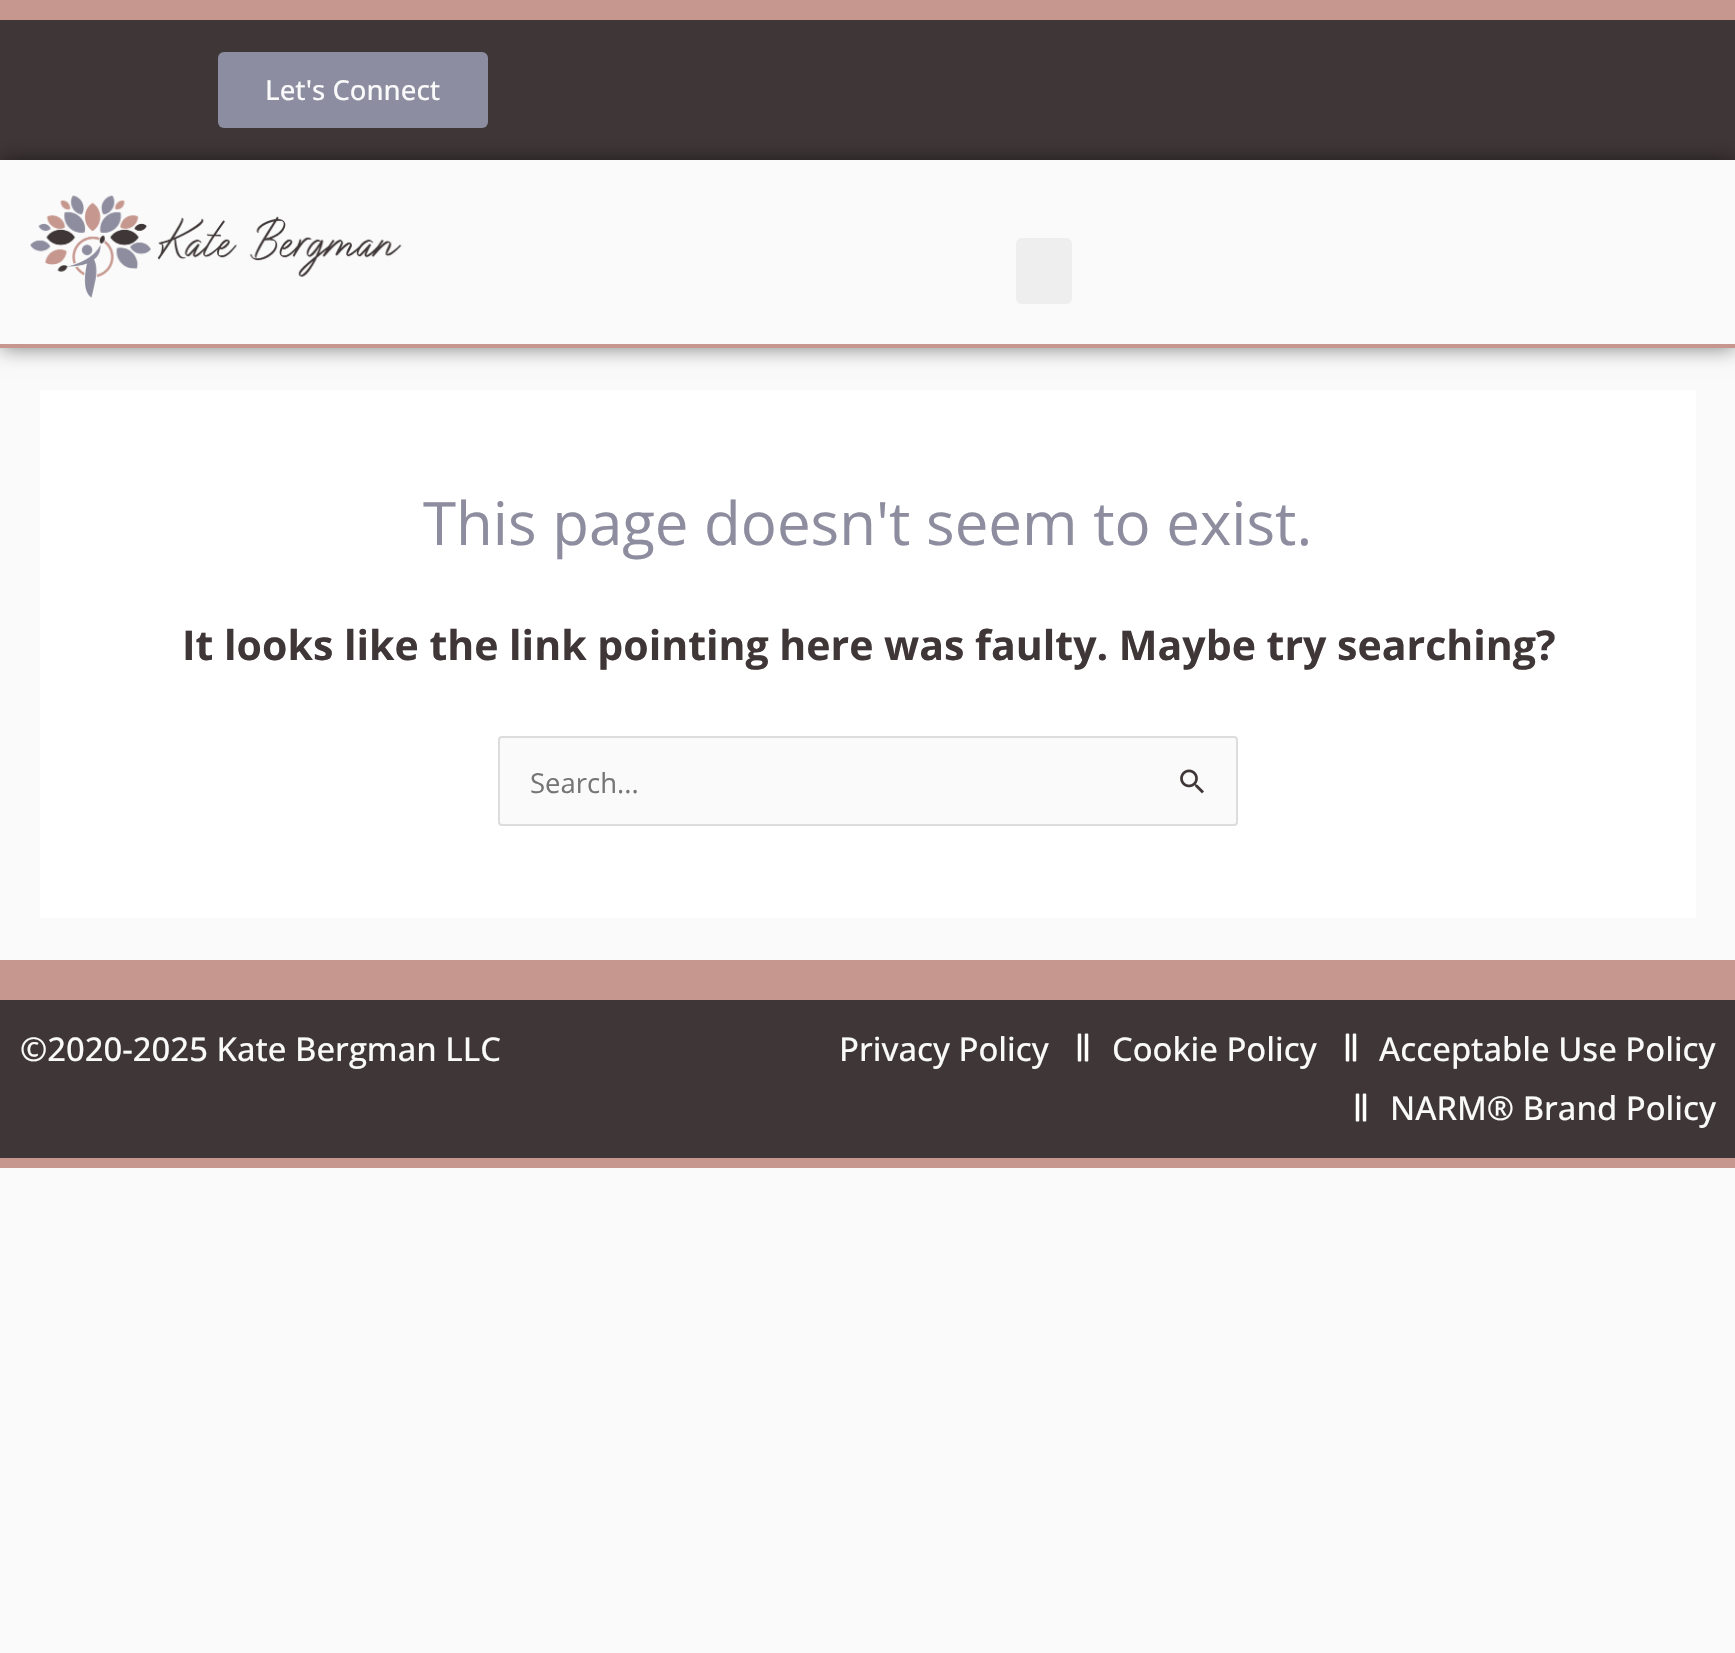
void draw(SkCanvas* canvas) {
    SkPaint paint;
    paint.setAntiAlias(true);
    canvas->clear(0xFFFAFAFA);
    paint.setColor(0xFF3F3637);
    canvas->drawRect(SkRect::MakeXYWH(0, 20, 1735, 140), paint);
    paint.setColor(0xFFC6978E);
    canvas->drawRect(SkRect::MakeXYWH(0, 0, 1735, 20), paint);
    paint.setColor(0xFF8C8DA1);
    canvas->drawRoundRect(SkRect::MakeXYWH(218, 52, 270, 76), 6, 6, paint);
    SkFont font1(fontMgr->matchFamilyStyle("Open Sans", SkFontStyle(500, SkFontStyle::kNormal_Width, SkFontStyle::kUpright_Slant)), 27.5f);
    font1.setSubpixel(true);
    paint.setColor(0xFFFAFAFA);
    canvas->drawString("Let's Connect", 265, 100, font1, paint);
    canvas->save();
    canvas->clipPath(SkPathBuilder(SkPathFillType::kEvenOdd).moveTo(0, 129).lineTo(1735, 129).lineTo(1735, 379).lineTo(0, 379).close().moveTo(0, 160).lineTo(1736, 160).lineTo(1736, 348).lineTo(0, 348).close().detach(), true);
    paint.setColor(0x80000000);
    paint.setMaskFilter(SkMaskFilter::MakeBlur(kNormal_SkBlurStyle, 10));
    canvas->drawRect(SkRect::MakeXYWH(0, 160, 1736, 188), paint);
    paint.setMaskFilter(nullptr);
    canvas->restore();
    paint.setColor(0xFFC6978E);
    canvas->drawRect(SkRect::MakeXYWH(0, 344, 1735, 4), paint);
    canvas->drawImageRect(SkImages::DeferredFromEncodedData(SkData::MakeFromFileName("img1.png")), SkRect::MakeXYWH(30, 195, 372, 103), SkSamplingOptions());
    paint.setColor(0xFFEEEEEE);
    canvas->drawRoundRect(SkRect::MakeXYWH(1016, 238, 56, 66), 6, 6, paint);
    paint.setColor(0xFFFFFFFF);
    canvas->drawRect(SkRect::MakeXYWH(40, 390, 1656, 528), paint);
    SkFont font2(fontMgr->matchFamilyStyle("Open Sans", SkFontStyle::Normal()), 60);
    font2.setSubpixel(true);
    paint.setColor(0xFF8D8D9F);
    canvas->drawString("This page doesn't seem to exist.", 423, 545, font2, paint);
    SkFont font3(fontMgr->matchFamilyStyle("Open Sans", SkFontStyle::Bold()), 41.05f);
    font3.setSubpixel(true);
    paint.setColor(0xFF3F3637);
    canvas->drawString("It looks like the link pointing here was faulty. Maybe try searching?", 182, 660, font3, paint);
    paint.setColor(0xFFFAFAFA);
    canvas->drawRoundRect(SkRect::MakeXYWH(499, 737, 738, 88), 3, 3, paint);
    paint.setStyle(SkPaint::kStroke_Style);
    paint.setStrokeWidth(2);
    paint.setColor(0xFFDDDDDD);
    canvas->drawRoundRect(SkRect::MakeXYWH(499, 737, 738, 88), 3, 3, paint);
    SkFont font4(fontMgr->matchFamilyStyle("Open Sans", SkFontStyle::Normal()), 27.5f);
    font4.setSubpixel(true);
    paint.setStyle(SkPaint::kFill_Style);
    paint.setColor(0xFF757575);
    canvas->drawString("Search...", 530, 793, font4, paint);
    canvas->drawImageRect(SkImages::DeferredFromEncodedData(SkData::MakeFromFileName("img2.png")), SkRect::MakeXYWH(1180, 769, 24, 25), SkSamplingOptions());
    paint.setColor(0xFF3F3637);
    canvas->drawRect(SkRect::MakeXYWH(0, 1000, 1735, 158), paint);
    paint.setColor(0xFFC6978E);
    canvas->drawRect(SkRect::MakeXYWH(0, 960, 1735, 40), paint);
    canvas->drawRect(SkRect::MakeXYWH(0, 1158, 1735, 10), paint);
    SkFont font5(fontMgr->matchFamilyStyle("Open Sans", SkFontStyle(500, SkFontStyle::kNormal_Width, SkFontStyle::kUpright_Slant)), 32.8f);
    font5.setSubpixel(true);
    paint.setColor(0xFFFAFAFA);
    canvas->drawString("©2020-2025 Kate Bergman LLC", 20, 1061, font5, paint);
    canvas->drawString("Privacy Policy", 839, 1061, font5, paint);
    canvas->drawImageRect(SkImages::DeferredFromEncodedData(SkData::MakeFromFileName("img3.png")), SkRect::MakeXYWH(1077, 1033, 12, 29), SkSamplingOptions());
    canvas->drawString("Cookie Policy", 1112, 1061, font5, paint);
    canvas->drawImageRect(SkImages::DeferredFromEncodedData(SkData::MakeFromFileName("img3.png")), SkRect::MakeXYWH(1345, 1033, 12, 29), SkSamplingOptions());
    canvas->drawString("Acceptable Use Policy", 1379, 1061, font5, paint);
    canvas->drawImageRect(SkImages::DeferredFromEncodedData(SkData::MakeFromFileName("img3.png")), SkRect::MakeXYWH(1355, 1093, 12, 29), SkSamplingOptions());
    canvas->drawString("NARM® Brand Policy", 1390, 1120, font5, paint);
}
